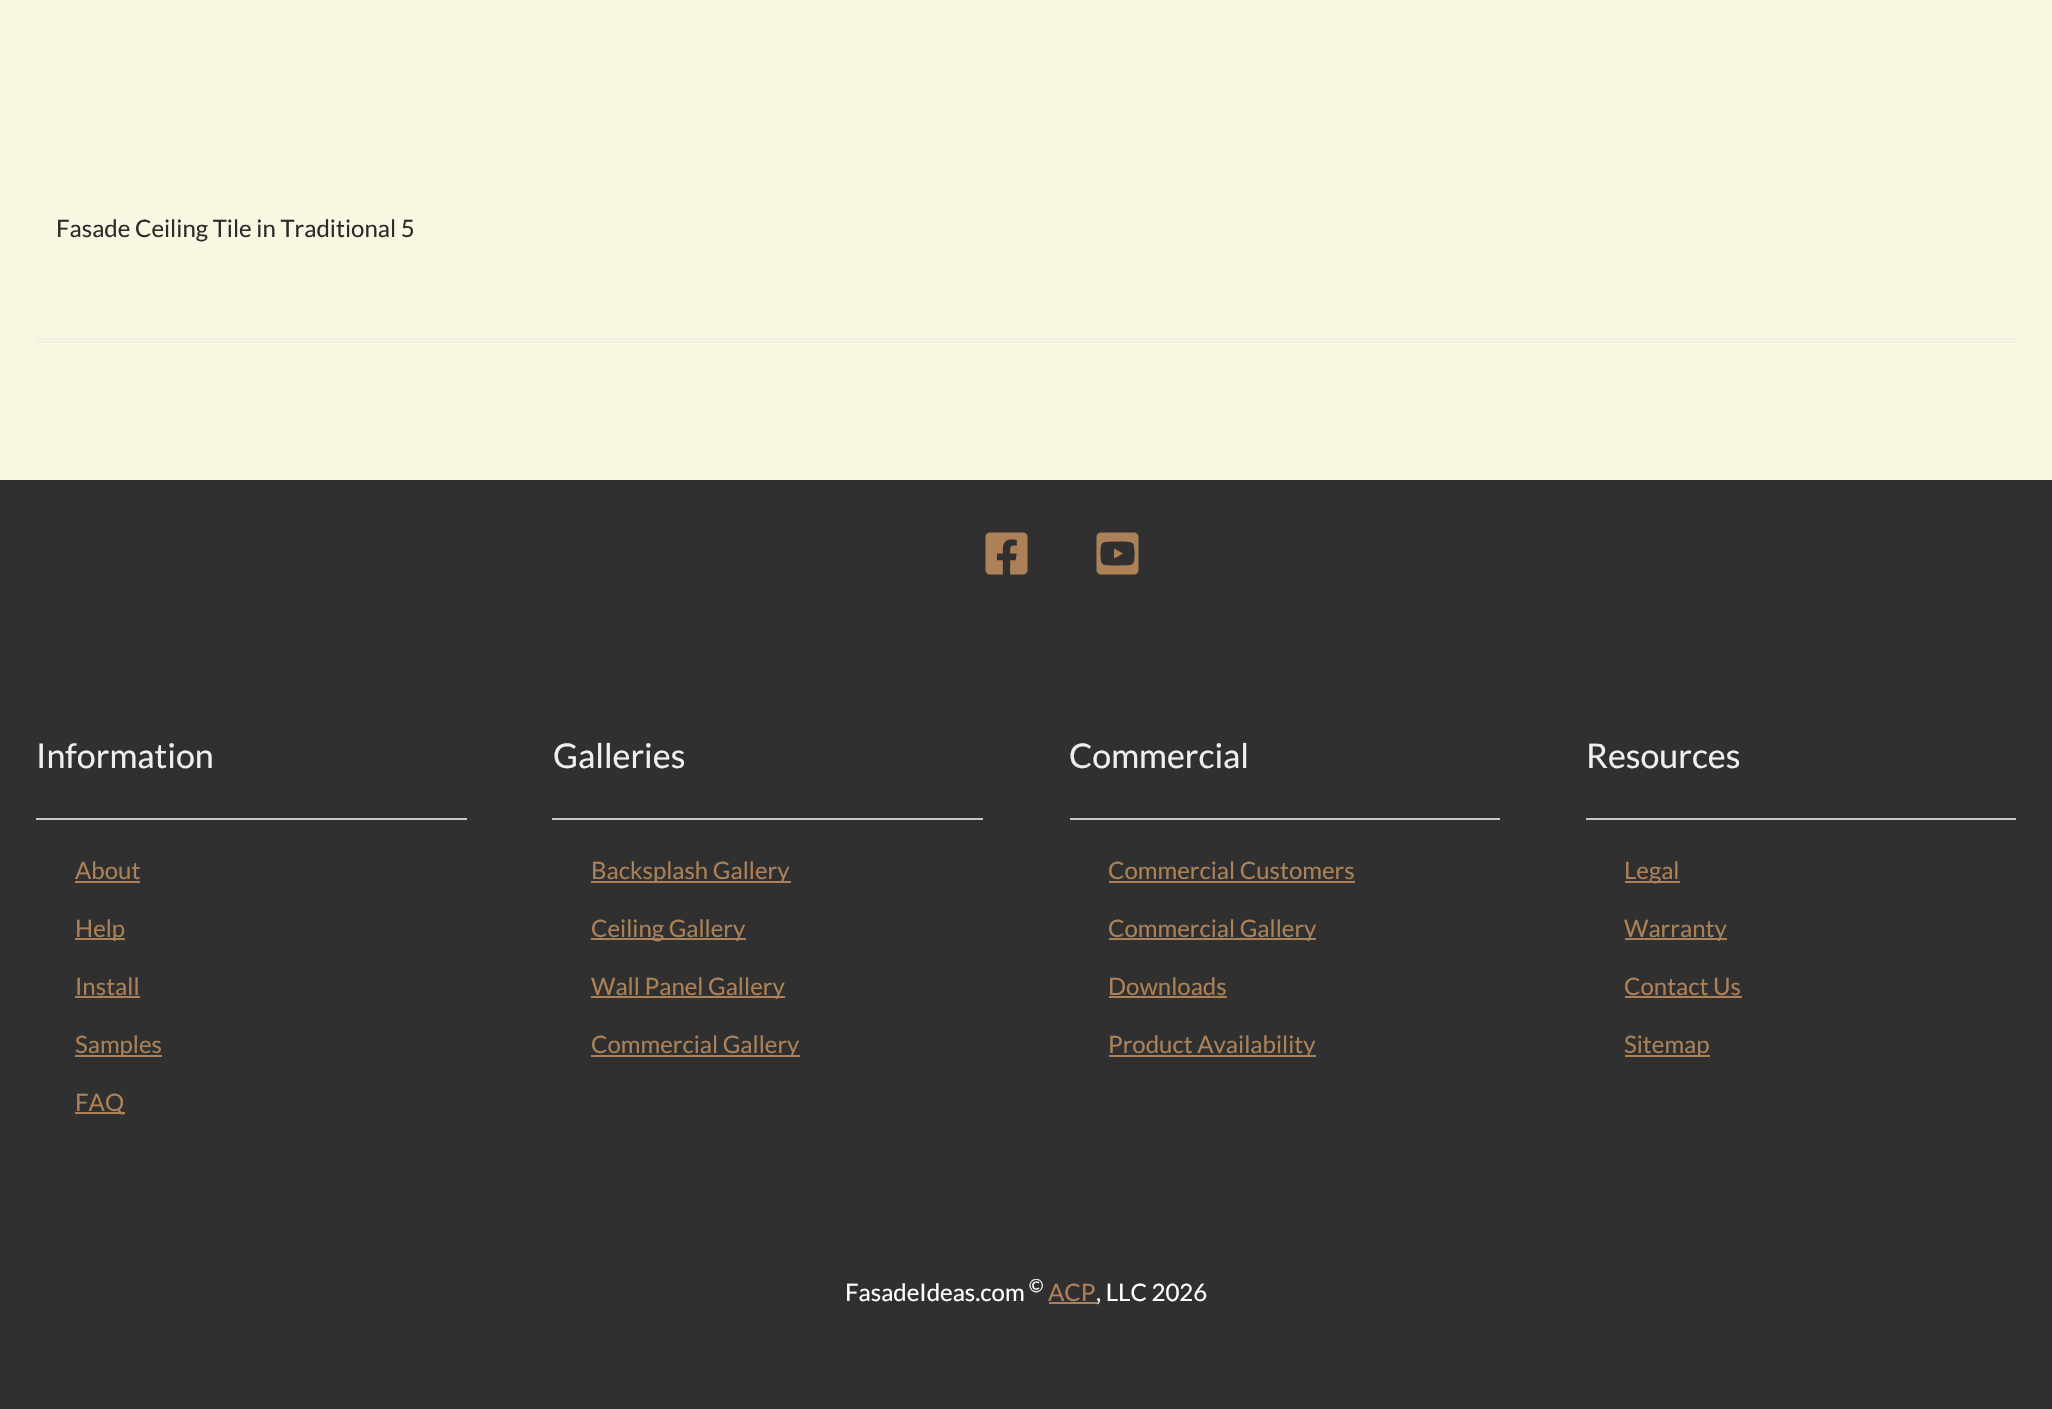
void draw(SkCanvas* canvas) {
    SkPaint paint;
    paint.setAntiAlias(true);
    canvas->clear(0xFFF9F7E2);
    paint.setColor(0xFFF3F1DD);
    canvas->drawRect(SkRect::MakeXYWH(36, 338, 1980, 2), paint);
    canvas->drawRect(SkRect::MakeXYWH(36, 341, 1980, 2), paint);
    SkFont font1(fontMgr->matchFamilyStyle("Lato", SkFontStyle::Normal()), 24);
    font1.setSubpixel(true);
    paint.setColor(0xFF2B2B2B);
    canvas->drawString("Fasade Ceiling Tile in Traditional 5", 56, 237, font1, paint);
    paint.setColor(0xFF303030);
    canvas->drawRect(SkRect::MakeXYWH(0, 480, 2052, 929), paint);
    canvas->drawImageRect(SkImages::DeferredFromEncodedData(SkData::MakeFromFileName("img1.png")), SkRect::MakeXYWH(985, 532, 43, 43), SkSamplingOptions());
    canvas->drawImageRect(SkImages::DeferredFromEncodedData(SkData::MakeFromFileName("img2.png")), SkRect::MakeXYWH(1096, 532, 43, 43), SkSamplingOptions());
    paint.setColor(0xFFC8C8C8);
    canvas->drawRect(SkRect::MakeXYWH(36, 818, 431, 2), paint);
    SkFont font2(fontMgr->matchFamilyStyle("Lato", SkFontStyle::Normal()), 34);
    font2.setSubpixel(true);
    paint.setColor(0xFFEFEFEF);
    canvas->drawString("Information", 36, 768, font2, paint);
    paint.setColor(0xFFAC8158);
    canvas->drawString("About", 75, 879, font1, paint);
    canvas->drawRect(SkRect::MakeXYWH(75, 881, 65, 2), paint);
    canvas->drawRect(SkRect::MakeXYWH(75, 938, 50, 2), paint);
    canvas->drawString("Help", 75, 937, font1, paint);
    canvas->drawString("Install", 75, 995, font1, paint);
    canvas->drawRect(SkRect::MakeXYWH(75, 996, 65, 2), paint);
    canvas->drawRect(SkRect::MakeXYWH(75, 1055, 87, 2), paint);
    canvas->drawString("Samples", 75, 1053, font1, paint);
    canvas->drawRect(SkRect::MakeXYWH(75, 1112, 50, 2), paint);
    canvas->drawString("FAQ", 75, 1111, font1, paint);
    paint.setColor(0xFFC8C8C8);
    canvas->drawRect(SkRect::MakeXYWH(552, 818, 431, 2), paint);
    paint.setColor(0xFFEFEFEF);
    canvas->drawString("Galleries", 553, 768, font2, paint);
    paint.setColor(0xFFAC8158);
    canvas->drawRect(SkRect::MakeXYWH(591, 881, 200, 2), paint);
    canvas->drawString("Backsplash Gallery", 591, 879, font1, paint);
    canvas->drawRect(SkRect::MakeXYWH(591, 938, 155, 2), paint);
    canvas->drawString("Ceiling Gallery", 591, 937, font1, paint);
    canvas->drawRect(SkRect::MakeXYWH(591, 996, 194, 2), paint);
    canvas->drawString("Wall Panel Gallery", 591, 995, font1, paint);
    canvas->drawRect(SkRect::MakeXYWH(591, 1055, 209, 2), paint);
    canvas->drawString("Commercial Gallery", 591, 1053, font1, paint);
    paint.setColor(0xFFC8C8C8);
    canvas->drawRect(SkRect::MakeXYWH(1070, 818, 430, 2), paint);
    paint.setColor(0xFFEFEFEF);
    canvas->drawString("Commercial", 1069, 768, font2, paint);
    paint.setColor(0xFFAC8158);
    canvas->drawString("Commercial Customers", 1108, 879, font1, paint);
    canvas->drawRect(SkRect::MakeXYWH(1109, 881, 246, 2), paint);
    canvas->drawRect(SkRect::MakeXYWH(1109, 938, 207, 2), paint);
    canvas->drawString("Commercial Gallery", 1108, 937, font1, paint);
    canvas->drawString("Downloads", 1108, 995, font1, paint);
    canvas->drawRect(SkRect::MakeXYWH(1109, 996, 118, 2), paint);
    canvas->drawRect(SkRect::MakeXYWH(1109, 1055, 207, 2), paint);
    canvas->drawString("Product Availability", 1108, 1053, font1, paint);
    paint.setColor(0xFFC8C8C8);
    canvas->drawRect(SkRect::MakeXYWH(1586, 818, 430, 2), paint);
    paint.setColor(0xFFEFEFEF);
    canvas->drawString("Resources", 1586, 768, font2, paint);
    paint.setColor(0xFFAC8158);
    canvas->drawRect(SkRect::MakeXYWH(1625, 881, 55, 2), paint);
    canvas->drawString("Legal", 1624, 879, font1, paint);
    canvas->drawRect(SkRect::MakeXYWH(1625, 938, 102, 2), paint);
    canvas->drawString("Warranty", 1624, 937, font1, paint);
    canvas->drawString("Contact Us", 1624, 995, font1, paint);
    canvas->drawRect(SkRect::MakeXYWH(1625, 996, 117, 2), paint);
    canvas->drawRect(SkRect::MakeXYWH(1625, 1055, 85, 2), paint);
    canvas->drawString("Sitemap", 1624, 1053, font1, paint);
    paint.setColor(0xFFFFFFFF);
    canvas->drawString("FasadeIdeas.com", 845, 1301, font1, paint);
    SkFont font3(fontMgr->matchFamilyStyle("Lato", SkFontStyle::Normal()), 18);
    font3.setSubpixel(true);
    canvas->drawString("©", 1029, 1292, font3, paint);
    paint.setColor(0xFFAC8158);
    canvas->drawString("ACP", 1048, 1301, font1, paint);
    canvas->drawRect(SkRect::MakeXYWH(1049, 1302, 48, 2), paint);
    paint.setColor(0xFFFFFFFF);
    canvas->drawString(", LLC 2026", 1096, 1301, font1, paint);
}
